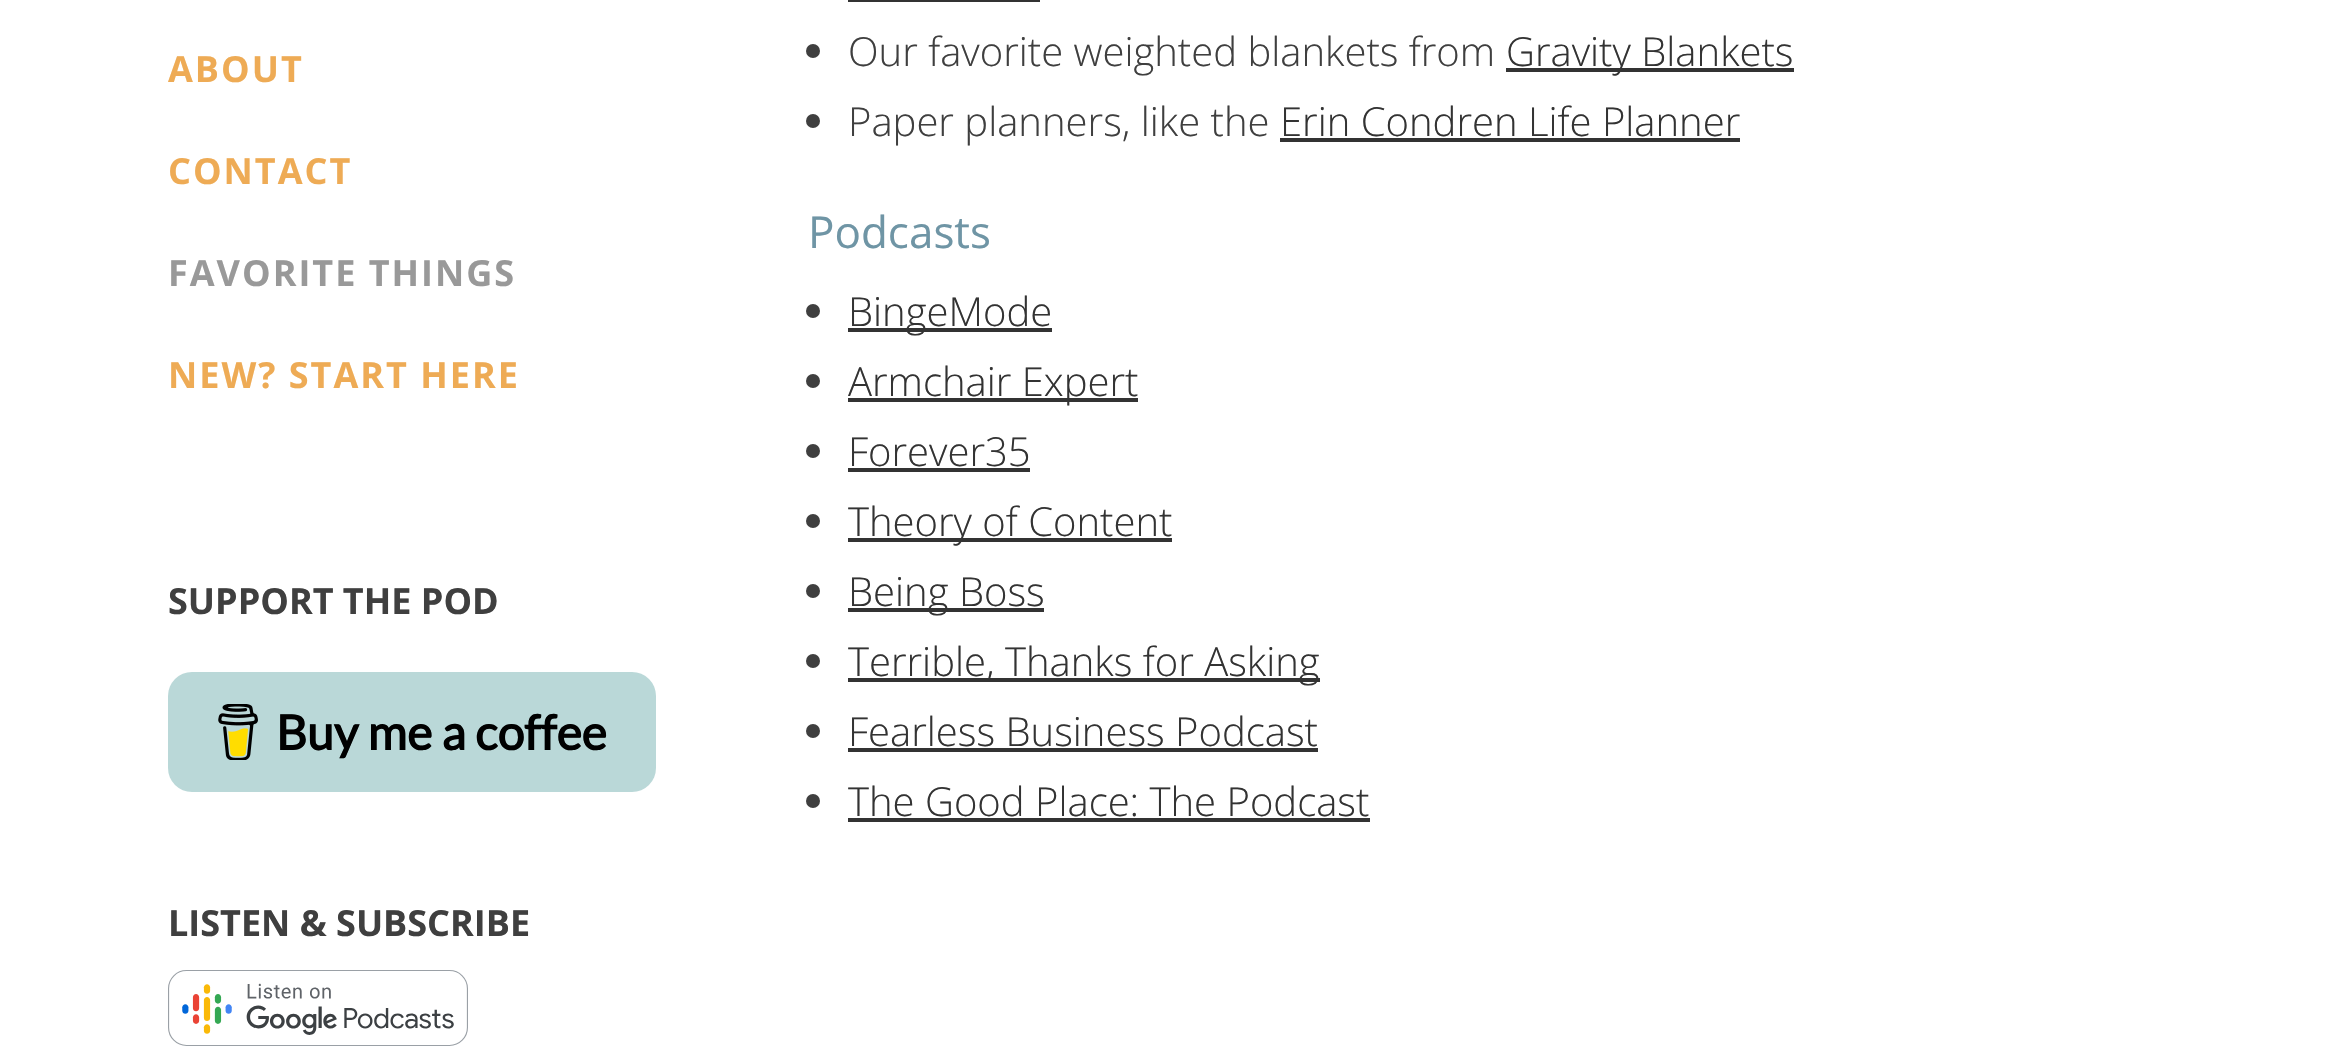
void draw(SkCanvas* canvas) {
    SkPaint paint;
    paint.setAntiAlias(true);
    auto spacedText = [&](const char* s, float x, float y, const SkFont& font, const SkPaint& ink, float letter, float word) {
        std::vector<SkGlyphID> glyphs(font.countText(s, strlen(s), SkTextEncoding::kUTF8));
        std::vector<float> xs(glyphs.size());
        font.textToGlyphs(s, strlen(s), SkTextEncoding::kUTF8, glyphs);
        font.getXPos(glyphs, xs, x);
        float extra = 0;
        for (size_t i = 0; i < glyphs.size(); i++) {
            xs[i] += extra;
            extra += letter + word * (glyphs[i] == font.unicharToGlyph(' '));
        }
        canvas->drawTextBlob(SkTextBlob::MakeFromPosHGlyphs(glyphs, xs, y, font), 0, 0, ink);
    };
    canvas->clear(0xFFFFFFFF);
    SkFont font1(fontMgr->matchFamilyStyle("Open Sans", SkFontStyle::Bold()), 36);
    font1.setSubpixel(true);
    paint.setColor(0xFFEEAB55);
    spacedText("ABOUT", 168, 82, font1, paint, 2, 0);
    spacedText("CONTACT", 168, 184, font1, paint, 2, 0);
    paint.setColor(0xFF999999);
    spacedText("FAVORITE THINGS", 168, 286, font1, paint, 2, 0);
    paint.setColor(0xFFEEAB55);
    spacedText("NEW? START HERE", 168, 388, font1, paint, 2, 0);
    paint.setColor(0xFF3F3F3F);
    canvas->drawString("SUPPORT THE POD", 168, 614, font1, paint);
    paint.setColor(0xFFBAD8D8);
    canvas->drawRoundRect(SkRect::MakeXYWH(168, 672, 488, 120), 24, 24, paint);
    canvas->drawImageRect(SkImages::DeferredFromEncodedData(SkData::MakeFromFileName("img1.png")), SkRect::MakeXYWH(218, 704, 40, 56), SkSamplingOptions());
    SkFont font2(fontMgr->matchFamilyStyle("Lato", SkFontStyle::Bold()), 48);
    font2.setSubpixel(true);
    paint.setColor(0xFF000000);
    canvas->drawString("Buy me a coffee", 276, 750, font2, paint);
    paint.setColor(0xFF3F3F3F);
    canvas->drawString("LISTEN & SUBSCRIBE", 168, 936, font1, paint);
    canvas->drawImageRect(SkImages::DeferredFromEncodedData(SkData::MakeFromFileName("img2.png")), SkRect::MakeXYWH(168, 970, 300, 76), SkSamplingOptions());
    paint.setColor(0xFF333333);
    canvas->drawRect(SkRect::MakeXYWH(848, 0, 192, 2), paint);
    paint.setColor(0xFF3F3F3F);
    canvas->drawCircle(813, 51, 7, paint);
    SkFont font3(fontMgr->matchFamilyStyle("Open Sans", SkFontStyle(300, SkFontStyle::kNormal_Width, SkFontStyle::kUpright_Slant)), 40);
    font3.setSubpixel(true);
    canvas->drawString("Our favorite weighted blankets from", 848, 66, font3, paint);
    paint.setColor(0xFF333333);
    canvas->drawRect(SkRect::MakeXYWH(1506, 68, 288, 4), paint);
    canvas->drawString("Gravity Blankets", 1506, 66, font3, paint);
    paint.setColor(0xFF3F3F3F);
    canvas->drawCircle(813, 121, 7, paint);
    canvas->drawString("Paper planners, like the", 848, 136, font3, paint);
    paint.setColor(0xFF333333);
    canvas->drawString("Erin Condren Life Planner", 1280, 136, font3, paint);
    canvas->drawRect(SkRect::MakeXYWH(1280, 138, 460, 4), paint);
    SkFont font4(fontMgr->matchFamilyStyle("Open Sans", SkFontStyle::Normal()), 44);
    font4.setSubpixel(true);
    paint.setColor(0xFF6F95A5);
    canvas->drawString("Podcasts", 808, 248, font4, paint);
    paint.setColor(0xFF3F3F3F);
    canvas->drawCircle(813, 311, 7, paint);
    paint.setColor(0xFF333333);
    canvas->drawRect(SkRect::MakeXYWH(848, 328, 204, 4), paint);
    canvas->drawString("BingeMode", 848, 326, font3, paint);
    paint.setColor(0xFF3F3F3F);
    canvas->drawCircle(813, 381, 7, paint);
    paint.setColor(0xFF333333);
    canvas->drawRect(SkRect::MakeXYWH(848, 398, 290, 4), paint);
    canvas->drawString("Armchair Expert", 848, 396, font3, paint);
    paint.setColor(0xFF3F3F3F);
    canvas->drawCircle(813, 451, 7, paint);
    paint.setColor(0xFF333333);
    canvas->drawString("Forever35", 848, 466, font3, paint);
    canvas->drawRect(SkRect::MakeXYWH(848, 468, 182, 4), paint);
    paint.setColor(0xFF3F3F3F);
    canvas->drawCircle(813, 521, 7, paint);
    paint.setColor(0xFF333333);
    canvas->drawRect(SkRect::MakeXYWH(848, 538, 324, 4), paint);
    canvas->drawString("Theory of Content", 848, 536, font3, paint);
    paint.setColor(0xFF3F3F3F);
    canvas->drawCircle(813, 591, 7, paint);
    paint.setColor(0xFF333333);
    canvas->drawRect(SkRect::MakeXYWH(848, 608, 196, 4), paint);
    canvas->drawString("Being Boss", 848, 606, font3, paint);
    paint.setColor(0xFF3F3F3F);
    canvas->drawCircle(813, 661, 7, paint);
    paint.setColor(0xFF333333);
    canvas->drawRect(SkRect::MakeXYWH(848, 678, 472, 4), paint);
    canvas->drawString("Terrible, Thanks for Asking", 848, 676, font3, paint);
    paint.setColor(0xFF3F3F3F);
    canvas->drawCircle(813, 731, 7, paint);
    paint.setColor(0xFF333333);
    canvas->drawString("Fearless Business Podcast", 848, 746, font3, paint);
    canvas->drawRect(SkRect::MakeXYWH(848, 748, 470, 4), paint);
    paint.setColor(0xFF3F3F3F);
    canvas->drawCircle(813, 801, 7, paint);
    paint.setColor(0xFF333333);
    canvas->drawString("The Good Place: The Podcast", 848, 816, font3, paint);
    canvas->drawRect(SkRect::MakeXYWH(848, 818, 522, 4), paint);
}
